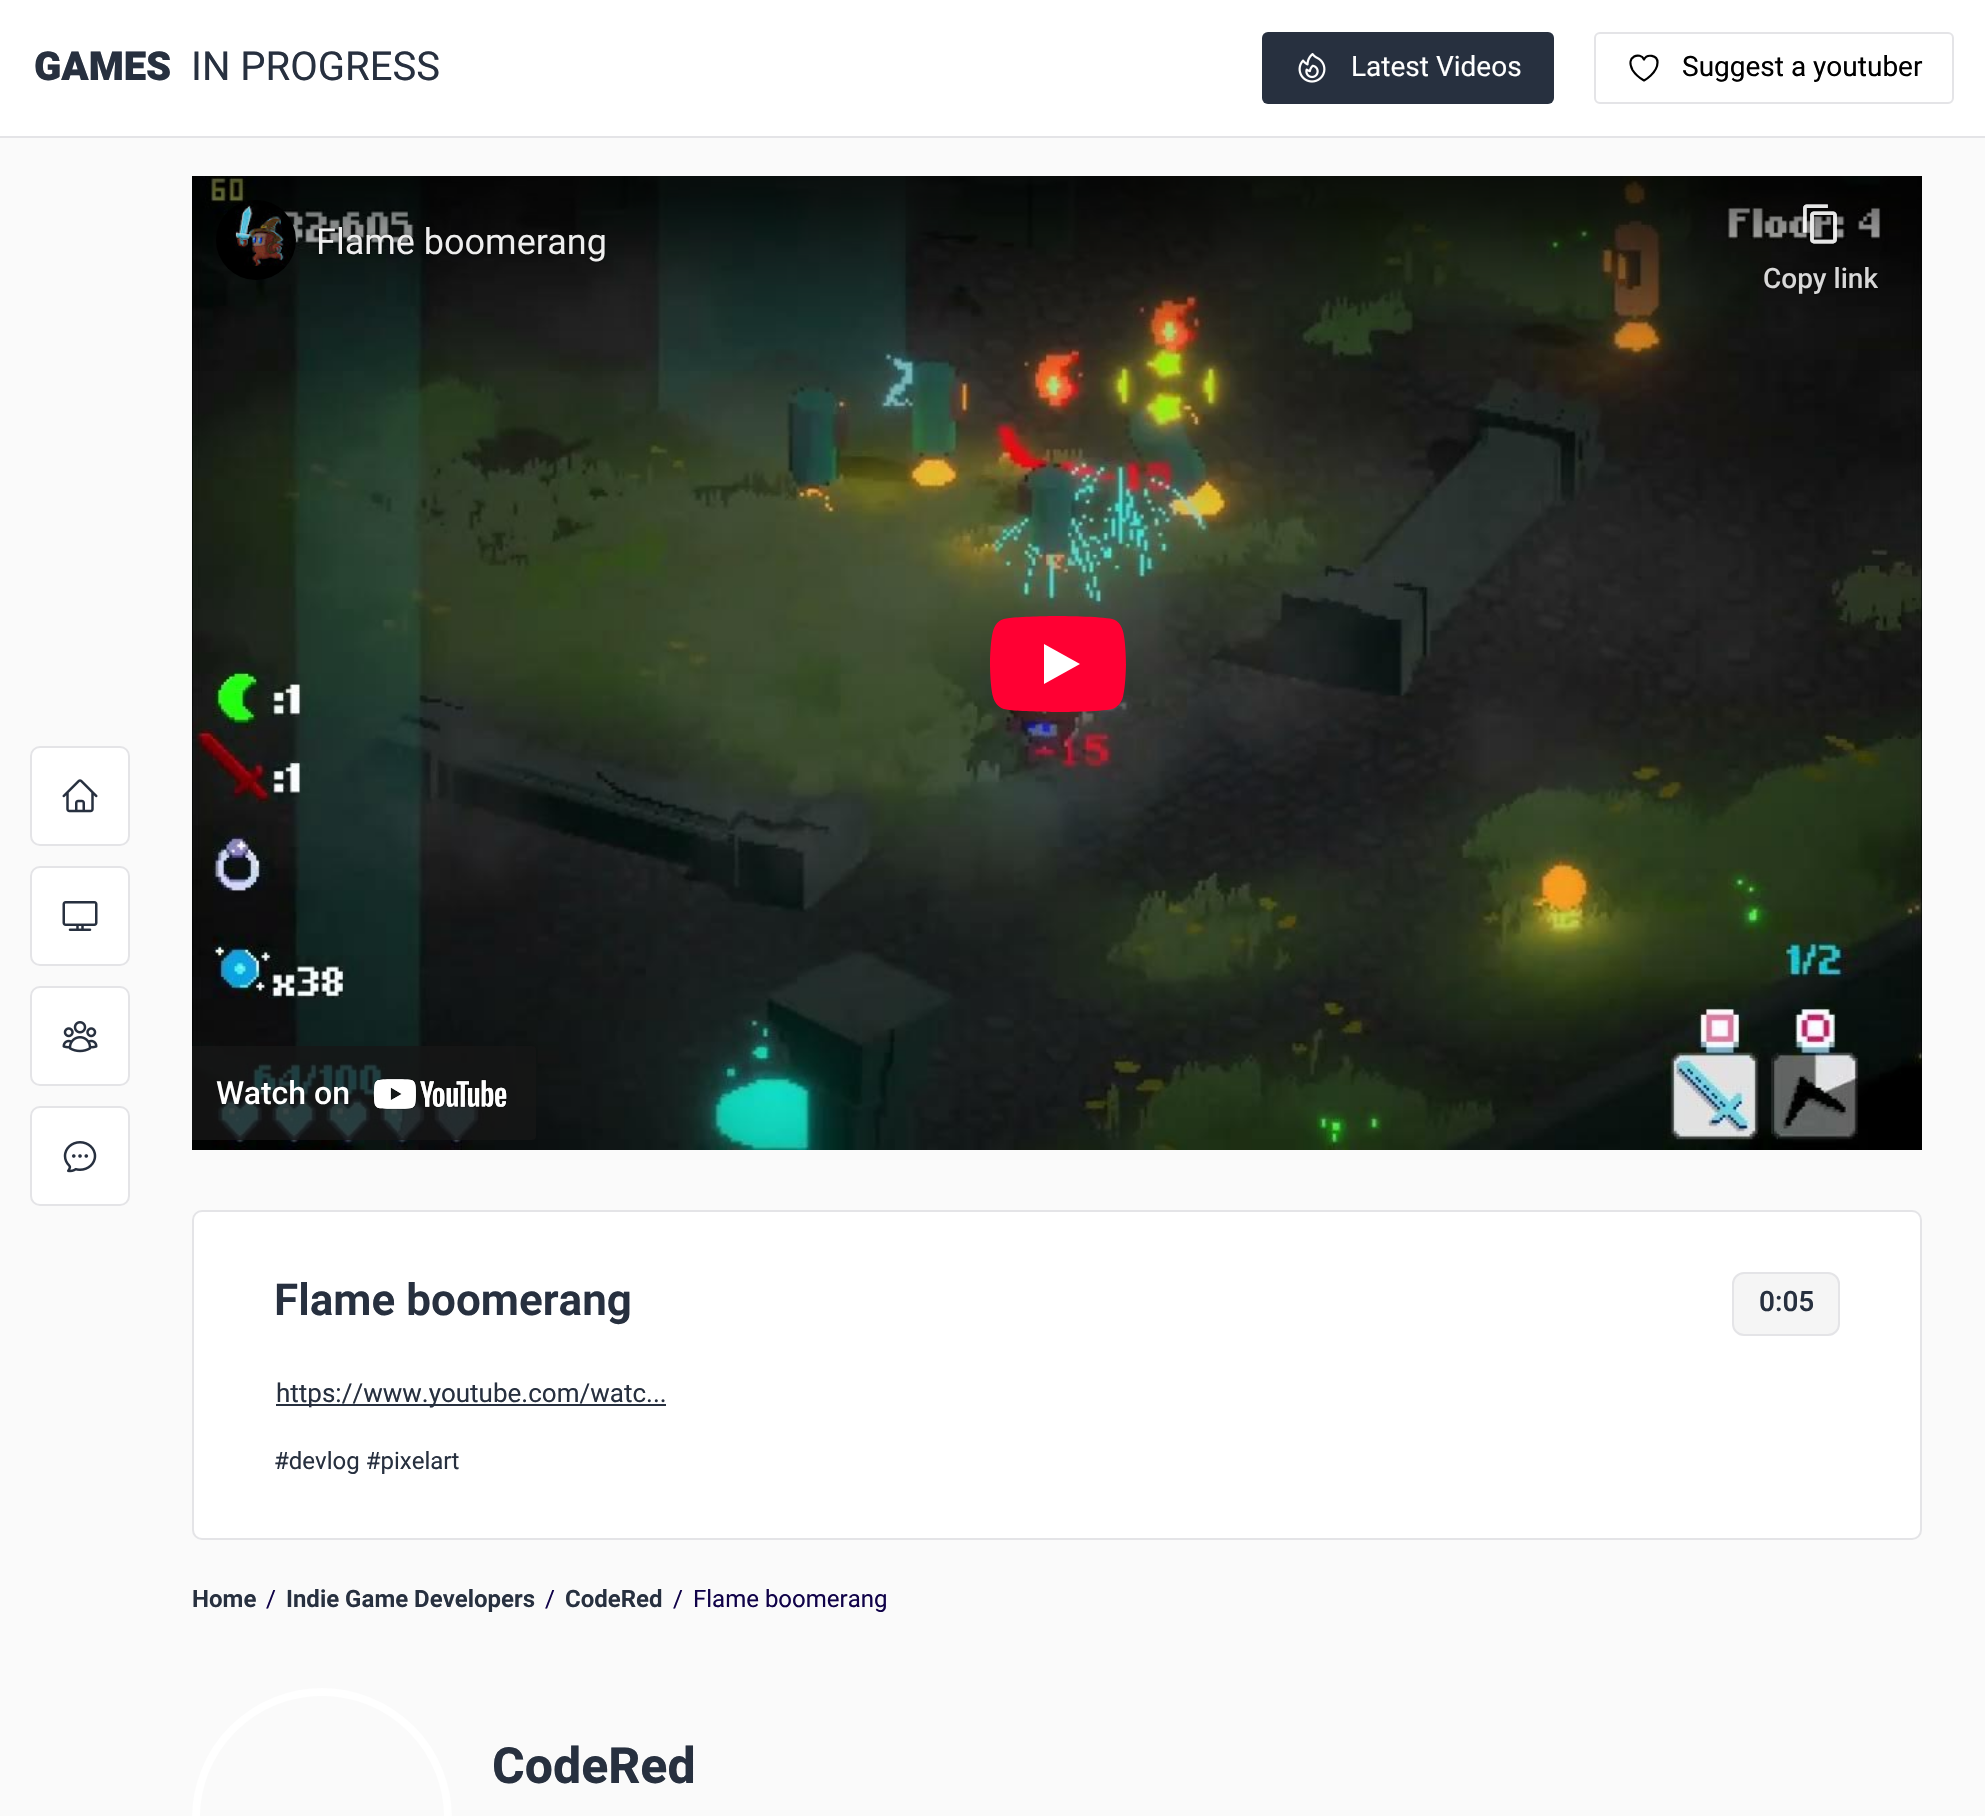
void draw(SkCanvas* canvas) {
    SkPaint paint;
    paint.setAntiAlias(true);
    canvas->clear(0xFFFAFAFA);
    paint.setColor(0xFFFFFFFF);
    canvas->drawRect(SkRect::MakeXYWH(0, 0, 1985, 136), paint);
    paint.setColor(0xFFE4E4E7);
    canvas->drawRect(SkRect::MakeXYWH(0, 136, 1985, 2), paint);
    SkFont font1(fontMgr->matchFamilyStyle("Heebo", SkFontStyle(900, SkFontStyle::kNormal_Width, SkFontStyle::kUpright_Slant)), 40);
    font1.setSubpixel(true);
    paint.setColor(0xFF27303F);
    canvas->drawString("GAMES", 34, 80, font1, paint);
    SkFont font2(fontMgr->matchFamilyStyle("Heebo", SkFontStyle::Normal()), 40);
    font2.setSubpixel(true);
    canvas->drawString("IN PROGRESS", 191, 80, font2, paint);
    canvas->drawRoundRect(SkRect::MakeXYWH(1262, 32, 292, 72), 6, 6, paint);
    canvas->drawImageRect(SkImages::DeferredFromEncodedData(SkData::MakeFromFileName("img1.png")), SkRect::MakeXYWH(1298, 53, 28, 30), SkSamplingOptions());
    SkFont font3(fontMgr->matchFamilyStyle("Heebo", SkFontStyle::Normal()), 28);
    font3.setSubpixel(true);
    paint.setColor(0xFFFFFFFF);
    canvas->drawString("Latest Videos", 1351, 76, font3, paint);
    paint.setStyle(SkPaint::kStroke_Style);
    paint.setStrokeWidth(2);
    paint.setColor(0xFFE4E4E7);
    canvas->drawRoundRect(SkRect::MakeXYWH(1595, 33, 358, 70), 5, 5, paint);
    paint.setStrokeWidth(2.2f);
    paint.setStrokeCap(SkPaint::kRound_Cap);
    paint.setStrokeJoin(SkPaint::kRound_Join);
    paint.setColor(0xFF000000);
    canvas->drawPath(SkPathBuilder().moveTo(1657.5f, 62.5f).cubicTo(1657.5f, 55, 1647, 53.5f, 1644, 59.5f).cubicTo(1640.5f, 51.5f, 1625, 56, 1632.5f, 70).cubicTo(1635, 74, 1639.5f, 78, 1644, 80.5f).cubicTo(1644, 80.5f, 1657.5f, 73, 1657.5f, 62.5f).close().detach(), paint);
    paint.setStyle(SkPaint::kFill_Style);
    canvas->drawString("Suggest a youtuber", 1682, 76, font3, paint);
    paint.setColor(0xFFFFFFFF);
    canvas->drawRoundRect(SkRect::MakeXYWH(31, 747, 98, 98), 9, 9, paint);
    paint.setStyle(SkPaint::kStroke_Style);
    paint.setStrokeWidth(2);
    paint.setStrokeCap(SkPaint::kButt_Cap);
    paint.setStrokeJoin(SkPaint::kMiter_Join);
    paint.setColor(0xFFE4E4E7);
    canvas->drawRoundRect(SkRect::MakeXYWH(31, 747, 98, 98), 9, 9, paint);
    canvas->drawImageRect(SkImages::DeferredFromEncodedData(SkData::MakeFromFileName("img2.png")), SkRect::MakeXYWH(62, 779, 36, 34), SkSamplingOptions());
    paint.setStyle(SkPaint::kFill_Style);
    paint.setColor(0xFFFFFFFF);
    canvas->drawRoundRect(SkRect::MakeXYWH(31, 867, 98, 98), 9, 9, paint);
    paint.setStyle(SkPaint::kStroke_Style);
    paint.setColor(0xFFE4E4E7);
    canvas->drawRoundRect(SkRect::MakeXYWH(31, 867, 98, 98), 9, 9, paint);
    canvas->drawImageRect(SkImages::DeferredFromEncodedData(SkData::MakeFromFileName("img3.png")), SkRect::MakeXYWH(62, 901, 36, 30), SkSamplingOptions());
    paint.setStyle(SkPaint::kFill_Style);
    paint.setColor(0xFFFFFFFF);
    canvas->drawRoundRect(SkRect::MakeXYWH(31, 987, 98, 98), 9, 9, paint);
    paint.setStyle(SkPaint::kStroke_Style);
    paint.setColor(0xFFE4E4E7);
    canvas->drawRoundRect(SkRect::MakeXYWH(31, 987, 98, 98), 9, 9, paint);
    canvas->drawImageRect(SkImages::DeferredFromEncodedData(SkData::MakeFromFileName("img4.png")), SkRect::MakeXYWH(62, 1021, 36, 32), SkSamplingOptions());
    paint.setStyle(SkPaint::kFill_Style);
    paint.setColor(0xFFFFFFFF);
    canvas->drawRoundRect(SkRect::MakeXYWH(31, 1107, 98, 98), 9, 9, paint);
    paint.setStyle(SkPaint::kStroke_Style);
    paint.setColor(0xFFE4E4E7);
    canvas->drawRoundRect(SkRect::MakeXYWH(31, 1107, 98, 98), 9, 9, paint);
    canvas->drawImageRect(SkImages::DeferredFromEncodedData(SkData::MakeFromFileName("img5.png")), SkRect::MakeXYWH(63, 1141, 34, 32), SkSamplingOptions());
    canvas->drawImageRect(SkImages::DeferredFromEncodedData(SkData::MakeFromFileName("img6.png")), SkRect::MakeXYWH(192, 176, 1730, 974), SkSamplingOptions());
    paint.setStyle(SkPaint::kFill_Style);
    paint.setColor(0xFFFFFFFF);
    canvas->drawRoundRect(SkRect::MakeXYWH(193, 1211, 1728, 328), 9, 9, paint);
    paint.setStyle(SkPaint::kStroke_Style);
    paint.setColor(0xFFE4E4E7);
    canvas->drawRoundRect(SkRect::MakeXYWH(193, 1211, 1728, 328), 9, 9, paint);
    SkFont font4(fontMgr->matchFamilyStyle("Heebo", SkFontStyle(600, SkFontStyle::kNormal_Width, SkFontStyle::kUpright_Slant)), 44);
    font4.setSubpixel(true);
    paint.setStyle(SkPaint::kFill_Style);
    paint.setColor(0xFF27303F);
    canvas->drawString("Flame boomerang", 274, 1315, font4, paint);
    paint.setColor(0xFFF5F5F5);
    canvas->drawRoundRect(SkRect::MakeXYWH(1733, 1273, 106, 62), 11, 11, paint);
    paint.setStyle(SkPaint::kStroke_Style);
    paint.setColor(0xFFE4E4E7);
    canvas->drawRoundRect(SkRect::MakeXYWH(1733, 1273, 106, 62), 11, 11, paint);
    SkFont font5(fontMgr->matchFamilyStyle("Heebo", SkFontStyle(500, SkFontStyle::kNormal_Width, SkFontStyle::kUpright_Slant)), 28);
    font5.setSubpixel(true);
    paint.setStyle(SkPaint::kFill_Style);
    paint.setColor(0xFF27303F);
    canvas->drawString("0:05", 1759, 1311, font5, paint);
    canvas->drawRect(SkRect::MakeXYWH(276, 1404, 390, 2), paint);
    SkFont font6(fontMgr->matchFamilyStyle("Heebo", SkFontStyle::Normal()), 26);
    font6.setSubpixel(true);
    canvas->drawString("https://www.youtube.com/watc...", 276, 1402, font6, paint);
    SkFont font7(fontMgr->matchFamilyStyle("Heebo", SkFontStyle::Normal()), 24);
    font7.setSubpixel(true);
    canvas->drawString("#devlog #pixelart", 274, 1469, font7, paint);
    SkFont font8(fontMgr->matchFamilyStyle("Heebo", SkFontStyle(600, SkFontStyle::kNormal_Width, SkFontStyle::kUpright_Slant)), 24);
    font8.setSubpixel(true);
    canvas->drawString("Home", 192, 1607, font8, paint);
    paint.setColor(0xFF100249);
    canvas->drawString("/", 266, 1607, font7, paint);
    paint.setColor(0xFF27303F);
    canvas->drawString("Indie Game Developers", 286, 1607, font8, paint);
    paint.setColor(0xFF100249);
    canvas->drawString("/", 545, 1607, font7, paint);
    paint.setColor(0xFF27303F);
    canvas->drawString("CodeRed", 565, 1607, font8, paint);
    paint.setColor(0xFF100249);
    canvas->drawString("/", 673, 1607, font7, paint);
    canvas->drawString("Flame boomerang", 693, 1607, font7, paint);
    paint.setStyle(SkPaint::kStroke_Style);
    paint.setStrokeWidth(8);
    paint.setColor(0xFFFFFFFF);
    canvas->drawCircle(322, 1818, 126, paint);
    SkFont font9(fontMgr->matchFamilyStyle("Heebo", SkFontStyle::Bold()), 50);
    font9.setSubpixel(true);
    paint.setStyle(SkPaint::kFill_Style);
    paint.setColor(0xFF27303F);
    canvas->drawString("CodeRed", 492, 1783, font9, paint);
}
